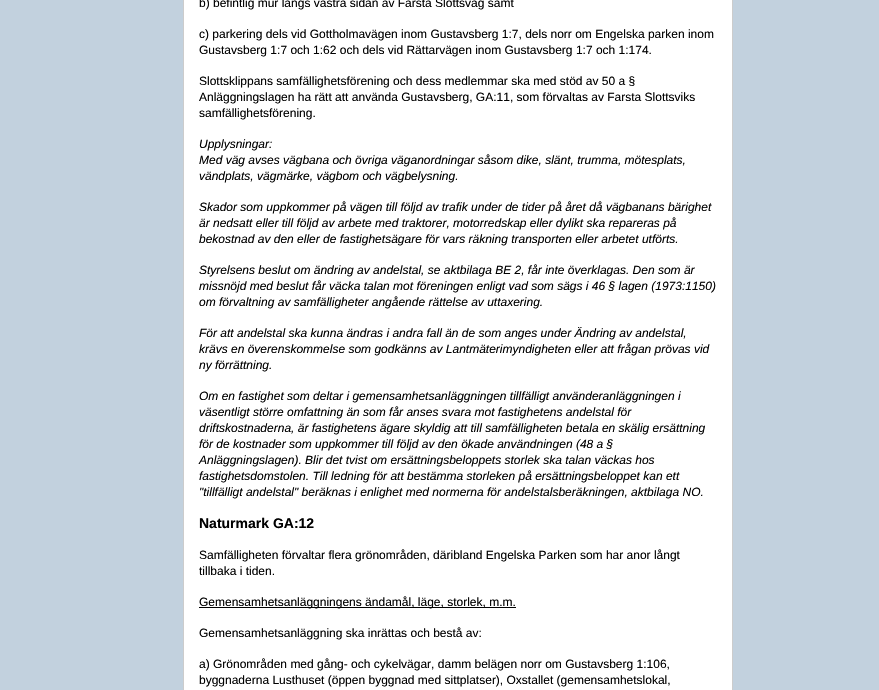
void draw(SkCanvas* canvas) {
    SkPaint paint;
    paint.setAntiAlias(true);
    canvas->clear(0xFFC2D1DE);
    paint.setColor(0xFFFFFFFF);
    canvas->drawRect(SkRect::MakeXYWH(183.5f, -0.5f, 549, 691), paint);
    paint.setStyle(SkPaint::kStroke_Style);
    paint.setStrokeWidth(1);
    paint.setColor(0xFFCCCCCC);
    canvas->drawRect(SkRect::MakeXYWH(183.5f, -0.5f, 549, 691), paint);
    SkFont font1(fontMgr->matchFamilyStyle("Liberation Sans", SkFontStyle::Normal()), 12);
    font1.setSubpixel(true);
    paint.setStyle(SkPaint::kFill_Style);
    paint.setColor(0xFF000000);
    canvas->drawString("b) befintlig mur längs västra sidan av Farsta Slottsväg samt", 199, 7, font1, paint);
    canvas->drawString("c) parkering dels vid Gottholmavägen inom Gustavsberg 1:7, dels norr om Engelska parken inom", 199, 38, font1, paint);
    canvas->drawString("Gustavsberg 1:7 och 1:62 och dels vid Rättarvägen inom Gustavsberg 1:7 och 1:174.", 199, 54, font1, paint);
    canvas->drawString("Slottsklippans samfällighetsförening och dess medlemmar ska med stöd av 50 a §", 199, 85, font1, paint);
    canvas->drawString("Anläggningslagen ha rätt att använda Gustavsberg, GA:11, som förvaltas av Farsta Slottsviks", 199, 101, font1, paint);
    canvas->drawString("samfällighetsförening.", 199, 117, font1, paint);
    SkFont font2(fontMgr->matchFamilyStyle("Liberation Sans", SkFontStyle::Italic()), 12);
    font2.setSubpixel(true);
    canvas->drawString("Upplysningar:", 199, 148, font2, paint);
    canvas->drawString("Med väg avses vägbana och övriga väganordningar såsom dike, slänt, trumma, mötesplats,", 199, 164, font2, paint);
    canvas->drawString("vändplats, vägmärke, vägbom och vägbelysning.", 199, 180, font2, paint);
    canvas->drawString("Skador som uppkommer på vägen till följd av trafik under de tider på året då vägbanans bärighet", 199, 211, font2, paint);
    canvas->drawString("är nedsatt eller till följd av arbete med traktorer, motorredskap eller dylikt ska repareras på", 199, 227, font2, paint);
    canvas->drawString("bekostnad av den eller de fastighetsägare för vars räkning transporten eller arbetet utförts.", 199, 243, font2, paint);
    canvas->drawString("Styrelsens beslut om ändring av andelstal, se aktbilaga BE 2, får inte överklagas. Den som är", 199, 274, font2, paint);
    canvas->drawString("missnöjd med beslut får väcka talan mot föreningen enligt vad som sägs i 46 § lagen (1973:1150)", 199, 290, font2, paint);
    canvas->drawString("om förvaltning av samfälligheter angående rättelse av uttaxering.", 199, 306, font2, paint);
    canvas->drawString("För att andelstal ska kunna ändras i andra fall än de som anges under Ändring av andelstal,", 199, 337, font2, paint);
    canvas->drawString("krävs en överenskommelse som godkänns av Lantmäterimyndigheten eller att frågan prövas vid", 199, 353, font2, paint);
    canvas->drawString("ny förrättning.", 199, 369, font2, paint);
    canvas->drawString("Om en fastighet som deltar i gemensamhetsanläggningen tillfälligt använderanläggningen i", 199, 400, font2, paint);
    canvas->drawString("väsentligt större omfattning än som får anses svara mot fastighetens andelstal för", 199, 416, font2, paint);
    canvas->drawString("driftskostnaderna, är fastighetens ägare skyldig att till samfälligheten betala en skälig ersättning", 199, 432, font2, paint);
    canvas->drawString("för de kostnader som uppkommer till följd av den ökade användningen (48 a §", 199, 448, font2, paint);
    canvas->drawString("Anläggningslagen). Blir det tvist om ersättningsbeloppets storlek ska talan väckas hos", 199, 464, font2, paint);
    canvas->drawString("fastighetsdomstolen. Till ledning för att bestämma storleken på ersättningsbeloppet kan ett", 199, 480, font2, paint);
    canvas->drawString("\"tillfälligt andelstal\" beräknas i enlighet med normerna för andelstalsberäkningen, aktbilaga NO.", 199, 496, font2, paint);
    SkFont font3(fontMgr->matchFamilyStyle("Liberation Sans", SkFontStyle::Bold()), 14);
    font3.setSubpixel(true);
    canvas->drawString("Naturmark GA:12", 199, 528, font3, paint);
    canvas->drawString("Samfälligheten förvaltar flera grönområden, däribland Engelska Parken som har anor långt", 199, 559, font1, paint);
    canvas->drawString("tillbaka i tiden.", 199, 575, font1, paint);
    canvas->drawRect(SkRect::MakeXYWH(199, 607, 317, 1), paint);
    canvas->drawString("Gemensamhetsanläggningens ändamål, läge, storlek, m.m.", 199, 606, font1, paint);
    canvas->drawString("Gemensamhetsanläggning ska inrättas och bestå av:", 199, 637, font1, paint);
    canvas->drawString("a) Grönområden med gång- och cykelvägar, damm belägen norr om Gustavsberg 1:106,", 199, 668, font1, paint);
    canvas->drawString("byggnaderna Lusthuset (öppen byggnad med sittplatser), Oxstallet (gemensamhetslokal,", 199, 684, font1, paint);
}
